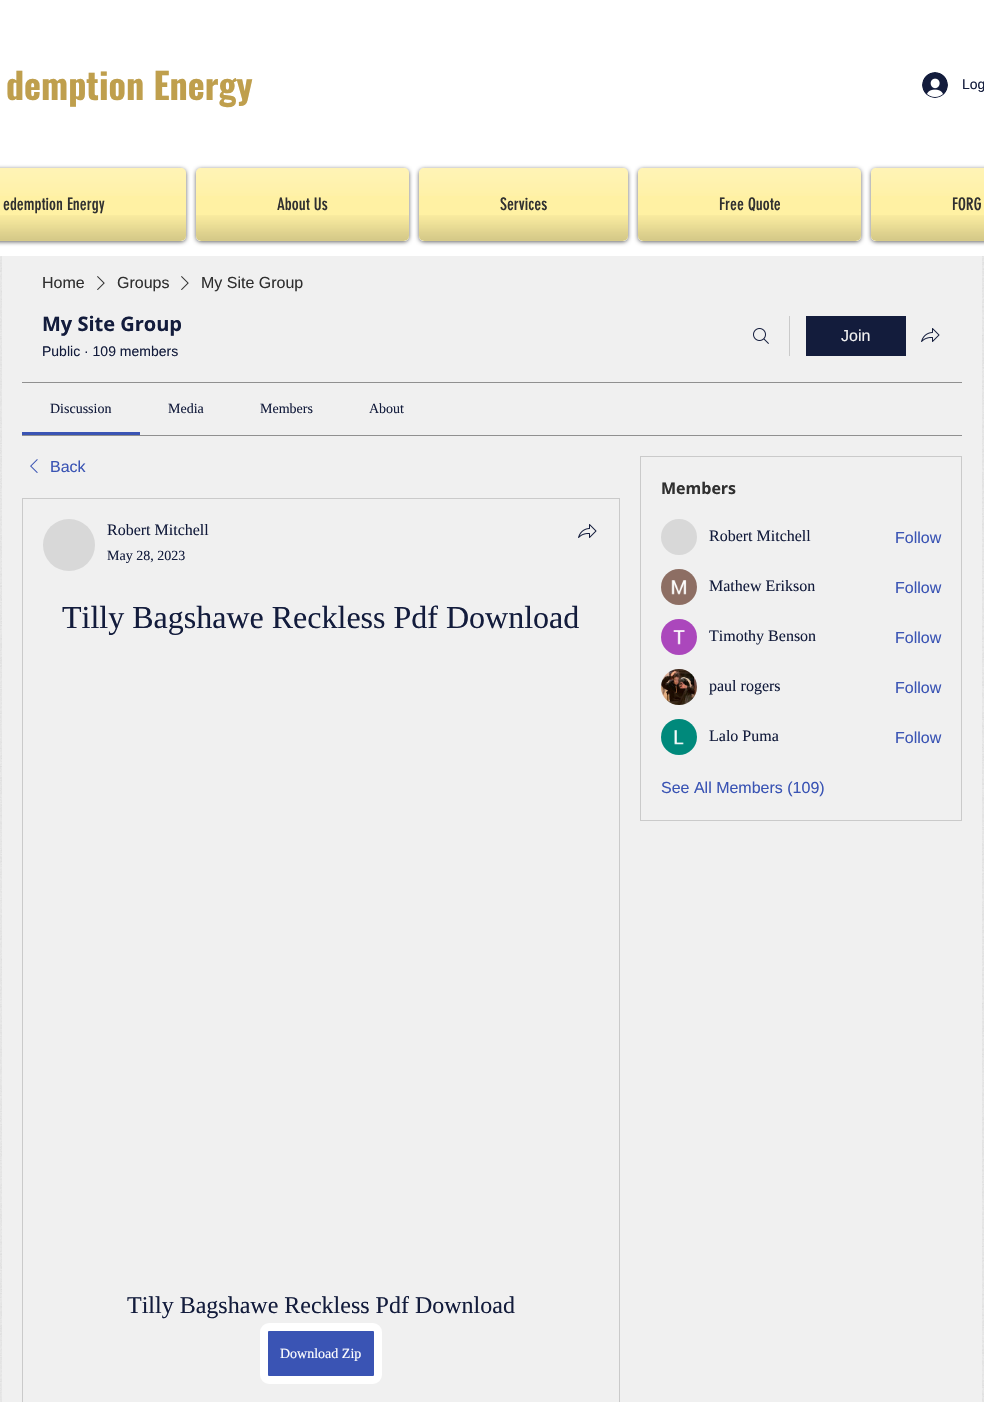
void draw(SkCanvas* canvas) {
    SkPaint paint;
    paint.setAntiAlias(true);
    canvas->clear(0xFFF0F0F0);
    paint.setColor(0xFFFFFFFF);
    canvas->drawRect(SkRect::MakeXYWH(0, 0, 984, 256), paint);
    SkFont font1(fontMgr->matchFamilyStyle("Oswald", SkFontStyle::Bold()), 36);
    font1.setSubpixel(true);
    paint.setColor(0xFFBF9F4D);
    canvas->drawString("demption Energy", 6, 100, font1, paint);
    canvas->drawImageRect(SkImages::DeferredFromEncodedData(SkData::MakeFromFileName("img1.png")), SkRect::MakeXYWH(922, 72, 26, 26), SkSamplingOptions());
    SkFont font2(fontMgr->matchFamilyStyle("Liberation Sans", SkFontStyle::Normal()), 14);
    font2.setSubpixel(true);
    paint.setColor(0xFF131C3C);
    canvas->drawString("Log", 962, 89, font2, paint);
    canvas->save();
    canvas->clipPath(SkPathBuilder(SkPathFillType::kEvenOdd).moveTo(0, 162).lineTo(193, 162).lineTo(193, 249).lineTo(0, 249).close().moveTo(-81, 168).lineTo(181, 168).cubicTo(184, 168, 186, 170, 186, 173).lineTo(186, 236).cubicTo(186, 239, 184, 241, 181, 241).lineTo(-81, 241).cubicTo(-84, 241, -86, 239, -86, 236).lineTo(-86, 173).cubicTo(-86, 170, -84, 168, -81, 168).close().detach(), true);
    paint.setColor(0x99000000);
    paint.setMaskFilter(SkMaskFilter::MakeBlur(kNormal_SkBlurStyle, 2));
    canvas->drawRoundRect(SkRect::MakeXYWH(-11, 169, 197, 73), 5, 5, paint);
    paint.setMaskFilter(nullptr);
    canvas->restore();
    paint.setColor(0x5CFFD700);
    canvas->drawRoundRect(SkRect::MakeXYWH(-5, 168, 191, 73), 5, 5, paint);
    canvas->drawImageRect(SkImages::DeferredFromEncodedData(SkData::MakeFromFileName("img2.png")), SkRect::MakeXYWH(0, 168, 186, 28), SkSamplingOptions());
    canvas->drawImageRect(SkImages::DeferredFromEncodedData(SkData::MakeFromFileName("img3.png")), SkRect::MakeXYWH(0, 215, 186, 26), SkSamplingOptions());
    SkFont font3(fontMgr->matchFamilyStyle("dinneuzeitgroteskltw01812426", SkFontStyle::Normal()), 17);
    font3.setSubpixel(true);
    paint.setColor(0xFF303030);
    canvas->drawString("edemption Energy", 3, 210, font3, paint);
    canvas->save();
    canvas->clipPath(SkPathBuilder(SkPathFillType::kEvenOdd).moveTo(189, 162).lineTo(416, 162).lineTo(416, 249).lineTo(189, 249).close().moveTo(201, 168).lineTo(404, 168).cubicTo(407, 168, 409, 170, 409, 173).lineTo(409, 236).cubicTo(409, 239, 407, 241, 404, 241).lineTo(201, 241).cubicTo(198, 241, 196, 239, 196, 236).lineTo(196, 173).cubicTo(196, 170, 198, 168, 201, 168).close().detach(), true);
    paint.setColor(0x99000000);
    paint.setMaskFilter(SkMaskFilter::MakeBlur(kNormal_SkBlurStyle, 2));
    canvas->drawRoundRect(SkRect::MakeXYWH(196, 169, 213, 73), 5, 5, paint);
    paint.setMaskFilter(nullptr);
    canvas->restore();
    paint.setColor(0x5CFFD700);
    canvas->drawRoundRect(SkRect::MakeXYWH(196, 168, 213, 73), 5, 5, paint);
    canvas->drawImageRect(SkImages::DeferredFromEncodedData(SkData::MakeFromFileName("img4.png")), SkRect::MakeXYWH(196, 168, 213, 28), SkSamplingOptions());
    canvas->drawImageRect(SkImages::DeferredFromEncodedData(SkData::MakeFromFileName("img5.png")), SkRect::MakeXYWH(196, 215, 213, 26), SkSamplingOptions());
    paint.setColor(0xFF303030);
    canvas->drawString("About Us", 277, 210, font3, paint);
    canvas->save();
    canvas->clipPath(SkPathBuilder(SkPathFillType::kEvenOdd).moveTo(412, 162).lineTo(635, 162).lineTo(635, 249).lineTo(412, 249).close().moveTo(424, 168).lineTo(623, 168).cubicTo(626, 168, 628, 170, 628, 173).lineTo(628, 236).cubicTo(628, 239, 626, 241, 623, 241).lineTo(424, 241).cubicTo(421, 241, 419, 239, 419, 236).lineTo(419, 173).cubicTo(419, 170, 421, 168, 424, 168).close().detach(), true);
    paint.setColor(0x99000000);
    paint.setMaskFilter(SkMaskFilter::MakeBlur(kNormal_SkBlurStyle, 2));
    canvas->drawRoundRect(SkRect::MakeXYWH(419, 169, 209, 73), 5, 5, paint);
    paint.setMaskFilter(nullptr);
    canvas->restore();
    paint.setColor(0x5CFFD700);
    canvas->drawRoundRect(SkRect::MakeXYWH(419, 168, 209, 73), 5, 5, paint);
    canvas->drawImageRect(SkImages::DeferredFromEncodedData(SkData::MakeFromFileName("img6.png")), SkRect::MakeXYWH(419, 168, 209, 28), SkSamplingOptions());
    canvas->drawImageRect(SkImages::DeferredFromEncodedData(SkData::MakeFromFileName("img7.png")), SkRect::MakeXYWH(419, 215, 209, 26), SkSamplingOptions());
    paint.setColor(0xFF303030);
    canvas->drawString("Services", 500, 210, font3, paint);
    canvas->save();
    canvas->clipPath(SkPathBuilder(SkPathFillType::kEvenOdd).moveTo(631, 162).lineTo(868, 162).lineTo(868, 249).lineTo(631, 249).close().moveTo(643, 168).lineTo(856, 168).cubicTo(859, 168, 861, 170, 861, 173).lineTo(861, 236).cubicTo(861, 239, 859, 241, 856, 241).lineTo(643, 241).cubicTo(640, 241, 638, 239, 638, 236).lineTo(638, 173).cubicTo(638, 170, 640, 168, 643, 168).close().detach(), true);
    paint.setColor(0x99000000);
    paint.setMaskFilter(SkMaskFilter::MakeBlur(kNormal_SkBlurStyle, 2));
    canvas->drawRoundRect(SkRect::MakeXYWH(638, 169, 223, 73), 5, 5, paint);
    paint.setMaskFilter(nullptr);
    canvas->restore();
    paint.setColor(0x5CFFD700);
    canvas->drawRoundRect(SkRect::MakeXYWH(638, 168, 223, 73), 5, 5, paint);
    canvas->drawImageRect(SkImages::DeferredFromEncodedData(SkData::MakeFromFileName("img8.png")), SkRect::MakeXYWH(638, 168, 223, 28), SkSamplingOptions());
    canvas->drawImageRect(SkImages::DeferredFromEncodedData(SkData::MakeFromFileName("img9.png")), SkRect::MakeXYWH(638, 215, 223, 26), SkSamplingOptions());
    paint.setColor(0xFF303030);
    canvas->drawString("Free Quote", 719, 210, font3, paint);
    canvas->save();
    canvas->clipPath(SkPathBuilder(SkPathFillType::kEvenOdd).moveTo(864, 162).lineTo(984, 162).lineTo(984, 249).lineTo(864, 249).close().moveTo(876, 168).lineTo(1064, 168).cubicTo(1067, 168, 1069, 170, 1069, 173).lineTo(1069, 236).cubicTo(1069, 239, 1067, 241, 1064, 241).lineTo(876, 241).cubicTo(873, 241, 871, 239, 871, 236).lineTo(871, 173).cubicTo(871, 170, 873, 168, 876, 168).close().detach(), true);
    paint.setColor(0x99000000);
    paint.setMaskFilter(SkMaskFilter::MakeBlur(kNormal_SkBlurStyle, 2));
    canvas->drawRoundRect(SkRect::MakeXYWH(871, 169, 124, 73), 5, 5, paint);
    paint.setMaskFilter(nullptr);
    canvas->restore();
    paint.setColor(0x5CFFD700);
    canvas->drawRoundRect(SkRect::MakeXYWH(871, 168, 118, 73), 5, 5, paint);
    canvas->drawImageRect(SkImages::DeferredFromEncodedData(SkData::MakeFromFileName("img10.png")), SkRect::MakeXYWH(871, 168, 113, 28), SkSamplingOptions());
    canvas->drawImageRect(SkImages::DeferredFromEncodedData(SkData::MakeFromFileName("img11.png")), SkRect::MakeXYWH(871, 215, 113, 26), SkSamplingOptions());
    paint.setColor(0xFF303030);
    canvas->drawString("FORG", 952, 210, font3, paint);
    canvas->drawImageRect(SkImages::DeferredFromEncodedData(SkData::MakeFromFileName("img20.png")), SkRect::MakeXYWH(0, 256, 984, 1146), SkSamplingOptions());
    paint.setColor(0xFFF0F0F0);
    canvas->drawRect(SkRect::MakeXYWH(2, 256, 980, 1146), paint);
    SkFont font4(fontMgr->matchFamilyStyle("Liberation Sans", SkFontStyle::Normal()), 16);
    font4.setSubpixel(true);
    paint.setColor(0xFF303030);
    canvas->drawString("Home", 42, 288, font4, paint);
    canvas->drawImageRect(SkImages::DeferredFromEncodedData(SkData::MakeFromFileName("img12.png")), SkRect::MakeXYWH(97, 276, 8, 14), SkSamplingOptions());
    canvas->drawString("Groups", 117, 288, font4, paint);
    canvas->drawImageRect(SkImages::DeferredFromEncodedData(SkData::MakeFromFileName("img12.png")), SkRect::MakeXYWH(181, 276, 8, 14), SkSamplingOptions());
    canvas->drawString("My Site Group", 201, 288, font4, paint);
    SkFont font5(fontMgr->matchFamilyStyle("Open Sans", SkFontStyle::Bold()), 20);
    font5.setSubpixel(true);
    paint.setColor(0xFF131C3C);
    canvas->drawString("My Site Group", 42, 331, font5, paint);
    canvas->drawString("Public · 109 members", 42, 356, font2, paint);
    canvas->drawImageRect(SkImages::DeferredFromEncodedData(SkData::MakeFromFileName("img13.png")), SkRect::MakeXYWH(753, 328, 16, 16), SkSamplingOptions());
    paint.setColor(0xFFCACACA);
    canvas->drawRect(SkRect::MakeXYWH(789, 316, 1, 40), paint);
    paint.setColor(0xFF131C3C);
    canvas->drawRect(SkRect::MakeXYWH(806, 316, 100, 40), paint);
    paint.setColor(0xFFF0F0F0);
    canvas->drawString("Join", 841, 341, font4, paint);
    canvas->drawImageRect(SkImages::DeferredFromEncodedData(SkData::MakeFromFileName("img14.png")), SkRect::MakeXYWH(921, 328, 19, 14), SkSamplingOptions());
    paint.setColor(0xFF909090);
    canvas->drawRect(SkRect::MakeXYWH(22, 382, 940, 1), paint);
    canvas->drawRect(SkRect::MakeXYWH(22, 435, 940, 1), paint);
    paint.setColor(0xFF3A54B4);
    canvas->drawRect(SkRect::MakeXYWH(22, 432, 118, 3), paint);
    SkFont font6(fontMgr->matchFamilyStyle("Liberation Serif", SkFontStyle::Normal()), 14);
    font6.setSubpixel(true);
    paint.setColor(0xFF131C3C);
    canvas->drawString("Discussion", 50, 413, font6, paint);
    canvas->drawString("Media", 168, 413, font6, paint);
    canvas->drawString("Members", 260, 413, font6, paint);
    canvas->drawString("About", 369, 413, font6, paint);
    canvas->drawImageRect(SkImages::DeferredFromEncodedData(SkData::MakeFromFileName("img15.png")), SkRect::MakeXYWH(30, 459, 8, 14), SkSamplingOptions());
    paint.setColor(0xFF3A54B4);
    canvas->drawString("Back", 50, 472, font4, paint);
    paint.setStyle(SkPaint::kStroke_Style);
    paint.setStrokeWidth(1);
    paint.setColor(0xFFCACACA);
    canvas->drawRect(SkRect::MakeXYWH(22.5f, 498.5f, 597, 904), paint);
    paint.setStyle(SkPaint::kFill_Style);
    paint.setColor(0xFFD8D8D8);
    canvas->drawCircle(69, 545, 26, paint);
    SkFont font7(fontMgr->matchFamilyStyle("Liberation Serif", SkFontStyle::Normal()), 16);
    font7.setSubpixel(true);
    paint.setColor(0xFF131C3C);
    canvas->drawString("Robert Mitchell", 107, 535, font7, paint);
    canvas->drawString("May 28, 2023", 107, 560, font6, paint);
    canvas->drawImageRect(SkImages::DeferredFromEncodedData(SkData::MakeFromFileName("img14.png")), SkRect::MakeXYWH(578, 524, 19, 14), SkSamplingOptions());
    SkFont font8(fontMgr->matchFamilyStyle("Liberation Serif", SkFontStyle::Normal()), 32);
    font8.setSubpixel(true);
    canvas->drawString("Tilly Bagshawe Reckless Pdf Download", 62, 628, font8, paint);
    SkFont font9(fontMgr->matchFamilyStyle("Liberation Serif", SkFontStyle::Normal()), 24);
    font9.setSubpixel(true);
    canvas->drawString("Tilly Bagshawe Reckless Pdf Download", 127, 1313, font9, paint);
    paint.setColor(0xFF3A54B4);
    canvas->drawRoundRect(SkRect::MakeXYWH(264, 1327, 114, 53), 5, 5, paint);
    paint.setStyle(SkPaint::kStroke_Style);
    paint.setStrokeWidth(8);
    paint.setColor(0xFFFFFFFF);
    canvas->drawRoundRect(SkRect::MakeXYWH(264, 1327, 114, 53), 5, 5, paint);
    paint.setStyle(SkPaint::kFill_Style);
    canvas->drawString("Download Zip", 280, 1358, font6, paint);
    paint.setStyle(SkPaint::kStroke_Style);
    paint.setStrokeWidth(1);
    paint.setColor(0xFFCACACA);
    canvas->drawRect(SkRect::MakeXYWH(640.5f, 456.5f, 321, 364), paint);
    SkFont font10(fontMgr->matchFamilyStyle("Open Sans", SkFontStyle::Bold()), 16);
    font10.setSubpixel(true);
    paint.setStyle(SkPaint::kFill_Style);
    paint.setColor(0xFF303030);
    canvas->drawString("Members", 661, 494, font10, paint);
    paint.setColor(0xFFD8D8D8);
    canvas->drawCircle(679, 537, 18, paint);
    paint.setColor(0xFF131C3C);
    canvas->drawString("Robert Mitchell", 709, 541, font7, paint);
    paint.setColor(0xFF3A54B4);
    canvas->drawString("Follow", 895, 543, font4, paint);
    canvas->drawImageRect(SkImages::DeferredFromEncodedData(SkData::MakeFromFileName("img16.png")), SkRect::MakeXYWH(661, 569, 36, 36), SkSamplingOptions());
    paint.setColor(0xFF131C3C);
    canvas->drawString("Mathew Erikson", 709, 591, font7, paint);
    paint.setColor(0xFF3A54B4);
    canvas->drawString("Follow", 895, 593, font4, paint);
    canvas->drawImageRect(SkImages::DeferredFromEncodedData(SkData::MakeFromFileName("img17.png")), SkRect::MakeXYWH(661, 619, 36, 36), SkSamplingOptions());
    paint.setColor(0xFF131C3C);
    canvas->drawString("Timothy Benson", 709, 641, font7, paint);
    paint.setColor(0xFF3A54B4);
    canvas->drawString("Follow", 895, 643, font4, paint);
    canvas->drawImageRect(SkImages::DeferredFromEncodedData(SkData::MakeFromFileName("img18.png")), SkRect::MakeXYWH(661, 669, 36, 36), SkSamplingOptions());
    paint.setColor(0xFF131C3C);
    canvas->drawString("paul rogers", 709, 691, font7, paint);
    paint.setColor(0xFF3A54B4);
    canvas->drawString("Follow", 895, 693, font4, paint);
    canvas->drawImageRect(SkImages::DeferredFromEncodedData(SkData::MakeFromFileName("img19.png")), SkRect::MakeXYWH(661, 719, 36, 36), SkSamplingOptions());
    paint.setColor(0xFF131C3C);
    canvas->drawString("Lalo Puma", 709, 741, font7, paint);
    paint.setColor(0xFF3A54B4);
    canvas->drawString("Follow", 895, 743, font4, paint);
    canvas->drawString("See All Members (109)", 661, 793, font4, paint);
}
